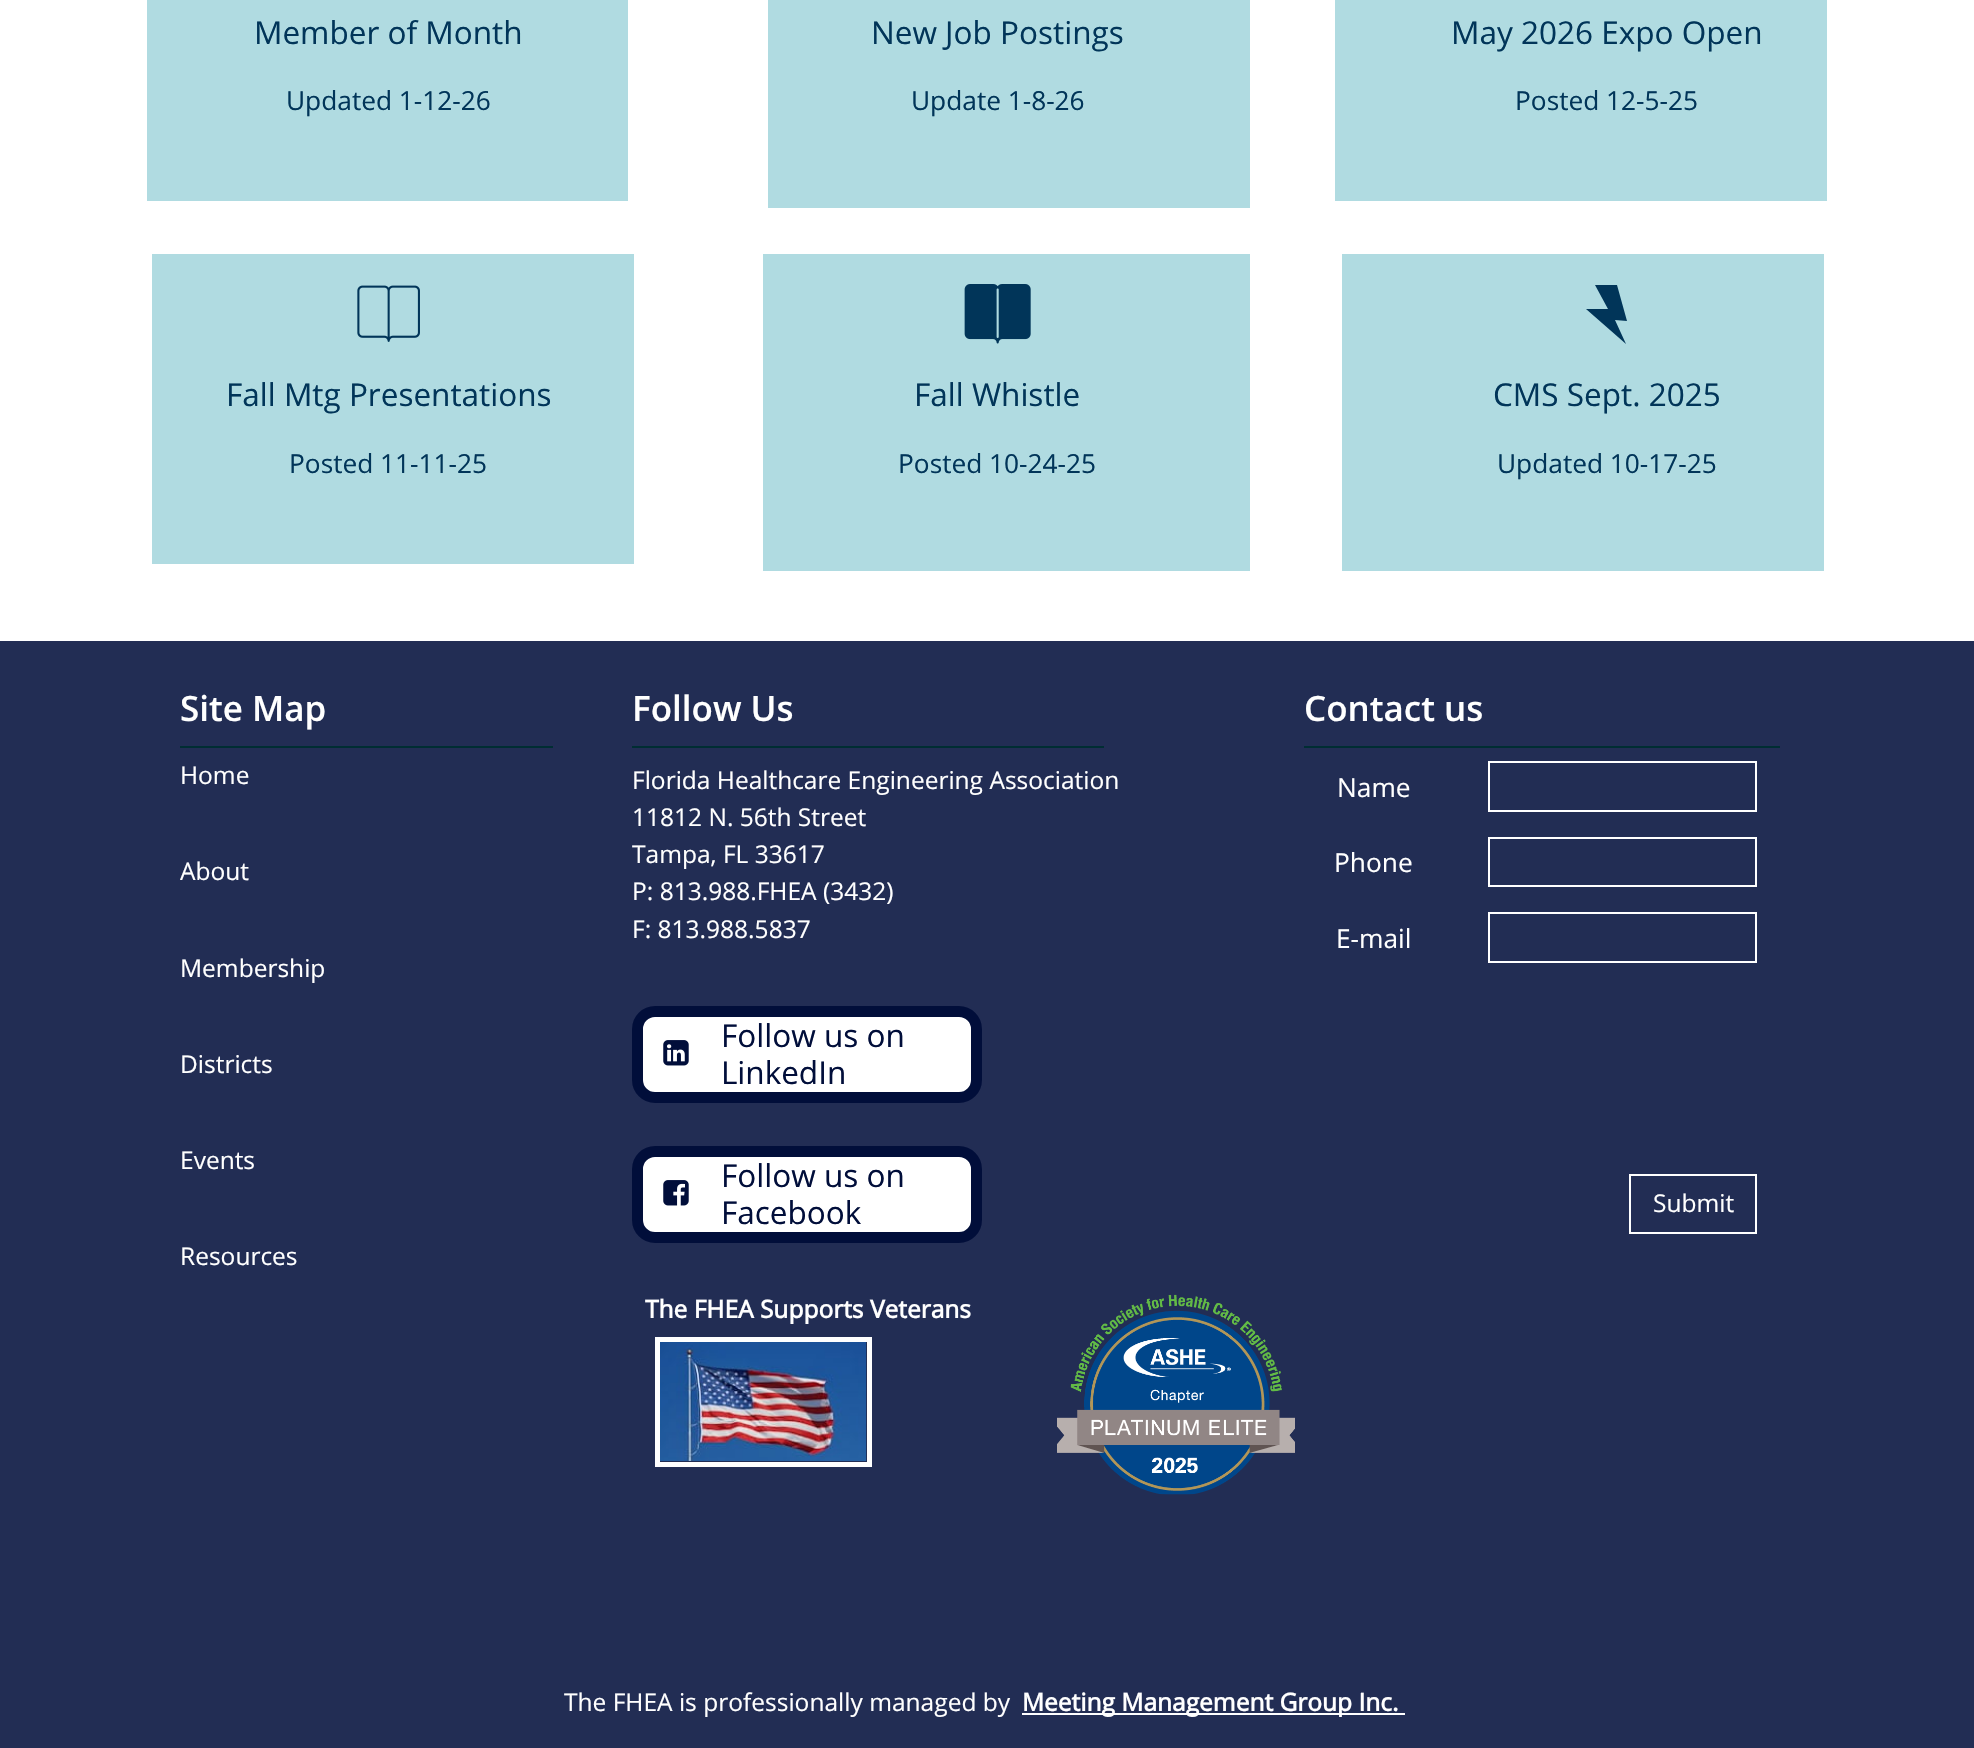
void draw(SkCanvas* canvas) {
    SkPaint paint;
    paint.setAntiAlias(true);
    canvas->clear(0xFFFFFFFF);
    paint.setColor(0xFFB0DBE1);
    canvas->drawRect(SkRect::MakeXYWH(1342, 254, 482, 317), paint);
    canvas->drawRect(SkRect::MakeXYWH(152, 254, 482, 310), paint);
    canvas->drawRect(SkRect::MakeXYWH(763, 254, 487, 317), paint);
    canvas->drawRect(SkRect::MakeXYWH(1335, 0, 492, 201), paint);
    canvas->drawRect(SkRect::MakeXYWH(768, 0, 482, 208), paint);
    canvas->drawRect(SkRect::MakeXYWH(147, 0, 481, 201), paint);
    SkFont font1(fontMgr->matchFamilyStyle("Open Sans", SkFontStyle::Normal()), 31.5f);
    font1.setSubpixel(true);
    paint.setColor(0xFF013559);
    canvas->drawString("Member of Month", 254, 44, font1, paint);
    SkFont font2(fontMgr->matchFamilyStyle("Open Sans", SkFontStyle::Normal()), 26.25f);
    font2.setSubpixel(true);
    canvas->drawString("Updated 1-12-26", 286, 110, font2, paint);
    canvas->drawString("New Job Postings", 871, 44, font1, paint);
    canvas->drawString("Update 1-8-26", 911, 110, font2, paint);
    canvas->drawString("May 2026 Expo Open", 1451, 44, font1, paint);
    canvas->drawString("Posted 12-5-25", 1515, 110, font2, paint);
    canvas->drawImageRect(SkImages::DeferredFromEncodedData(SkData::MakeFromFileName("img1.png")), SkRect::MakeXYWH(357, 285, 63, 57), SkSamplingOptions());
    canvas->drawString("Fall Mtg Presentations", 226, 406, font1, paint);
    canvas->drawString("Posted 11-11-25", 289, 473, font2, paint);
    canvas->drawImageRect(SkImages::DeferredFromEncodedData(SkData::MakeFromFileName("img2.png")), SkRect::MakeXYWH(964, 284, 67, 60), SkSamplingOptions());
    canvas->drawString("Fall Whistle", 914, 406, font1, paint);
    canvas->drawString("Posted 10-24-25", 898, 473, font2, paint);
    canvas->drawPath(SkPathBuilder().moveTo(1608, 309).lineTo(1595, 285).lineTo(1617, 285).lineTo(1627, 321).lineTo(1615, 320).lineTo(1626, 344).lineTo(1586, 309).close().detach(), paint);
    canvas->drawString("CMS Sept. 2025", 1493, 406, font1, paint);
    canvas->drawString("Updated 10-17-25", 1497, 473, font2, paint);
    paint.setColor(0xFF222D54);
    canvas->drawRect(SkRect::MakeXYWH(0, 641, 1974, 1107), paint);
    paint.setColor(0xFF002D33);
    canvas->drawRect(SkRect::MakeXYWH(180, 746, 373, 2), paint);
    SkFont font3(fontMgr->matchFamilyStyle("Open Sans", SkFontStyle(600, SkFontStyle::kNormal_Width, SkFontStyle::kUpright_Slant)), 35);
    font3.setSubpixel(true);
    paint.setColor(0xFFFFFFFF);
    canvas->drawString("Site Map", 180, 721, font3, paint);
    paint.setColor(0xFF002D33);
    canvas->drawRect(SkRect::MakeXYWH(632, 746, 472, 2), paint);
    paint.setColor(0xFFFFFFFF);
    canvas->drawString("Follow Us", 632, 721, font3, paint);
    paint.setColor(0xFF002D33);
    canvas->drawRect(SkRect::MakeXYWH(1304, 746, 476, 2), paint);
    paint.setColor(0xFFFFFFFF);
    canvas->drawString("Contact us", 1304, 721, font3, paint);
    SkFont font4(fontMgr->matchFamilyStyle("Open Sans", SkFontStyle::Normal()), 24.5f);
    font4.setSubpixel(true);
    canvas->drawString("Home", 180, 784, font4, paint);
    canvas->drawString("About", 180, 880, font4, paint);
    canvas->drawString("Membership", 180, 977, font4, paint);
    canvas->drawString("Districts", 180, 1073, font4, paint);
    canvas->drawString("Events", 180, 1169, font4, paint);
    canvas->drawString("Resources", 180, 1265, font4, paint);
    canvas->drawString("Florida Healthcare Engineering Association", 632, 789, font4, paint);
    canvas->drawString("11812 N. 56th Street", 632, 826, font4, paint);
    canvas->drawString("Tampa, FL 33617", 632, 863, font4, paint);
    canvas->drawString("P: 813.988.FHEA (3432)", 632, 900, font4, paint);
    canvas->drawString("F: 813.988.5837", 632, 938, font4, paint);
    canvas->drawString("Name", 1337, 797, font2, paint);
    paint.setStyle(SkPaint::kStroke_Style);
    paint.setStrokeWidth(2);
    canvas->drawRect(SkRect::MakeXYWH(1489, 762, 267, 49), paint);
    paint.setStyle(SkPaint::kFill_Style);
    canvas->drawString("Phone", 1334, 872, font2, paint);
    paint.setStyle(SkPaint::kStroke_Style);
    canvas->drawRect(SkRect::MakeXYWH(1489, 838, 267, 48), paint);
    paint.setStyle(SkPaint::kFill_Style);
    canvas->drawString("E-mail", 1336, 948, font2, paint);
    paint.setStyle(SkPaint::kStroke_Style);
    canvas->drawRect(SkRect::MakeXYWH(1489, 913, 267, 49), paint);
    canvas->drawRect(SkRect::MakeXYWH(1630, 1175, 126, 58), paint);
    paint.setStyle(SkPaint::kFill_Style);
    canvas->drawString("Submit", 1653, 1212, font4, paint);
    canvas->drawRoundRect(SkRect::MakeXYWH(637.5f, 1011.5f, 339, 86), 17.5f, 17.5f, paint);
    paint.setStyle(SkPaint::kStroke_Style);
    paint.setStrokeWidth(11);
    paint.setColor(0xFF010E3A);
    canvas->drawRoundRect(SkRect::MakeXYWH(637.5f, 1011.5f, 339, 86), 17.5f, 17.5f, paint);
    canvas->drawImageRect(SkImages::DeferredFromEncodedData(SkData::MakeFromFileName("img3.png")), SkRect::MakeXYWH(663, 1040, 26, 26), SkSamplingOptions());
    paint.setStyle(SkPaint::kFill_Style);
    canvas->drawString("Follow us on", 721, 1047, font1, paint);
    canvas->drawString("LinkedIn", 721, 1084, font1, paint);
    paint.setColor(0xFFFFFFFF);
    canvas->drawRoundRect(SkRect::MakeXYWH(637.5f, 1151.5f, 339, 86), 17.5f, 17.5f, paint);
    paint.setStyle(SkPaint::kStroke_Style);
    paint.setColor(0xFF010E3A);
    canvas->drawRoundRect(SkRect::MakeXYWH(637.5f, 1151.5f, 339, 86), 17.5f, 17.5f, paint);
    canvas->drawImageRect(SkImages::DeferredFromEncodedData(SkData::MakeFromFileName("img4.png")), SkRect::MakeXYWH(663, 1180, 26, 26), SkSamplingOptions());
    paint.setStyle(SkPaint::kFill_Style);
    canvas->drawString("Follow us on", 721, 1187, font1, paint);
    canvas->drawString("Facebook", 721, 1224, font1, paint);
    SkFont font5(fontMgr->matchFamilyStyle("Open Sans", SkFontStyle::Bold()), 24.5f);
    font5.setSubpixel(true);
    paint.setColor(0xFFFFFFFF);
    canvas->drawString("The FHEA Supports Veterans", 645, 1318, font5, paint);
    canvas->drawImageRect(SkImages::DeferredFromEncodedData(SkData::MakeFromFileName("img5.png")), SkRect::MakeXYWH(1057, 1294, 238, 201), SkSamplingOptions());
    canvas->drawImageRect(SkImages::DeferredFromEncodedData(SkData::MakeFromFileName("img6.png")), SkRect::MakeXYWH(660, 1342, 207, 119), SkSamplingOptions());
    paint.setStyle(SkPaint::kStroke_Style);
    paint.setStrokeWidth(5);
    canvas->drawRect(SkRect::MakeXYWH(657.5f, 1339.5f, 212, 125), paint);
    paint.setStyle(SkPaint::kFill_Style);
    canvas->drawString("The FHEA is professionally managed by", 564, 1711, font4, paint);
    canvas->drawRect(SkRect::MakeXYWH(1022, 1713, 383, 2), paint);
    canvas->drawString("Meeting Management Group Inc.", 1022, 1711, font5, paint);
}
